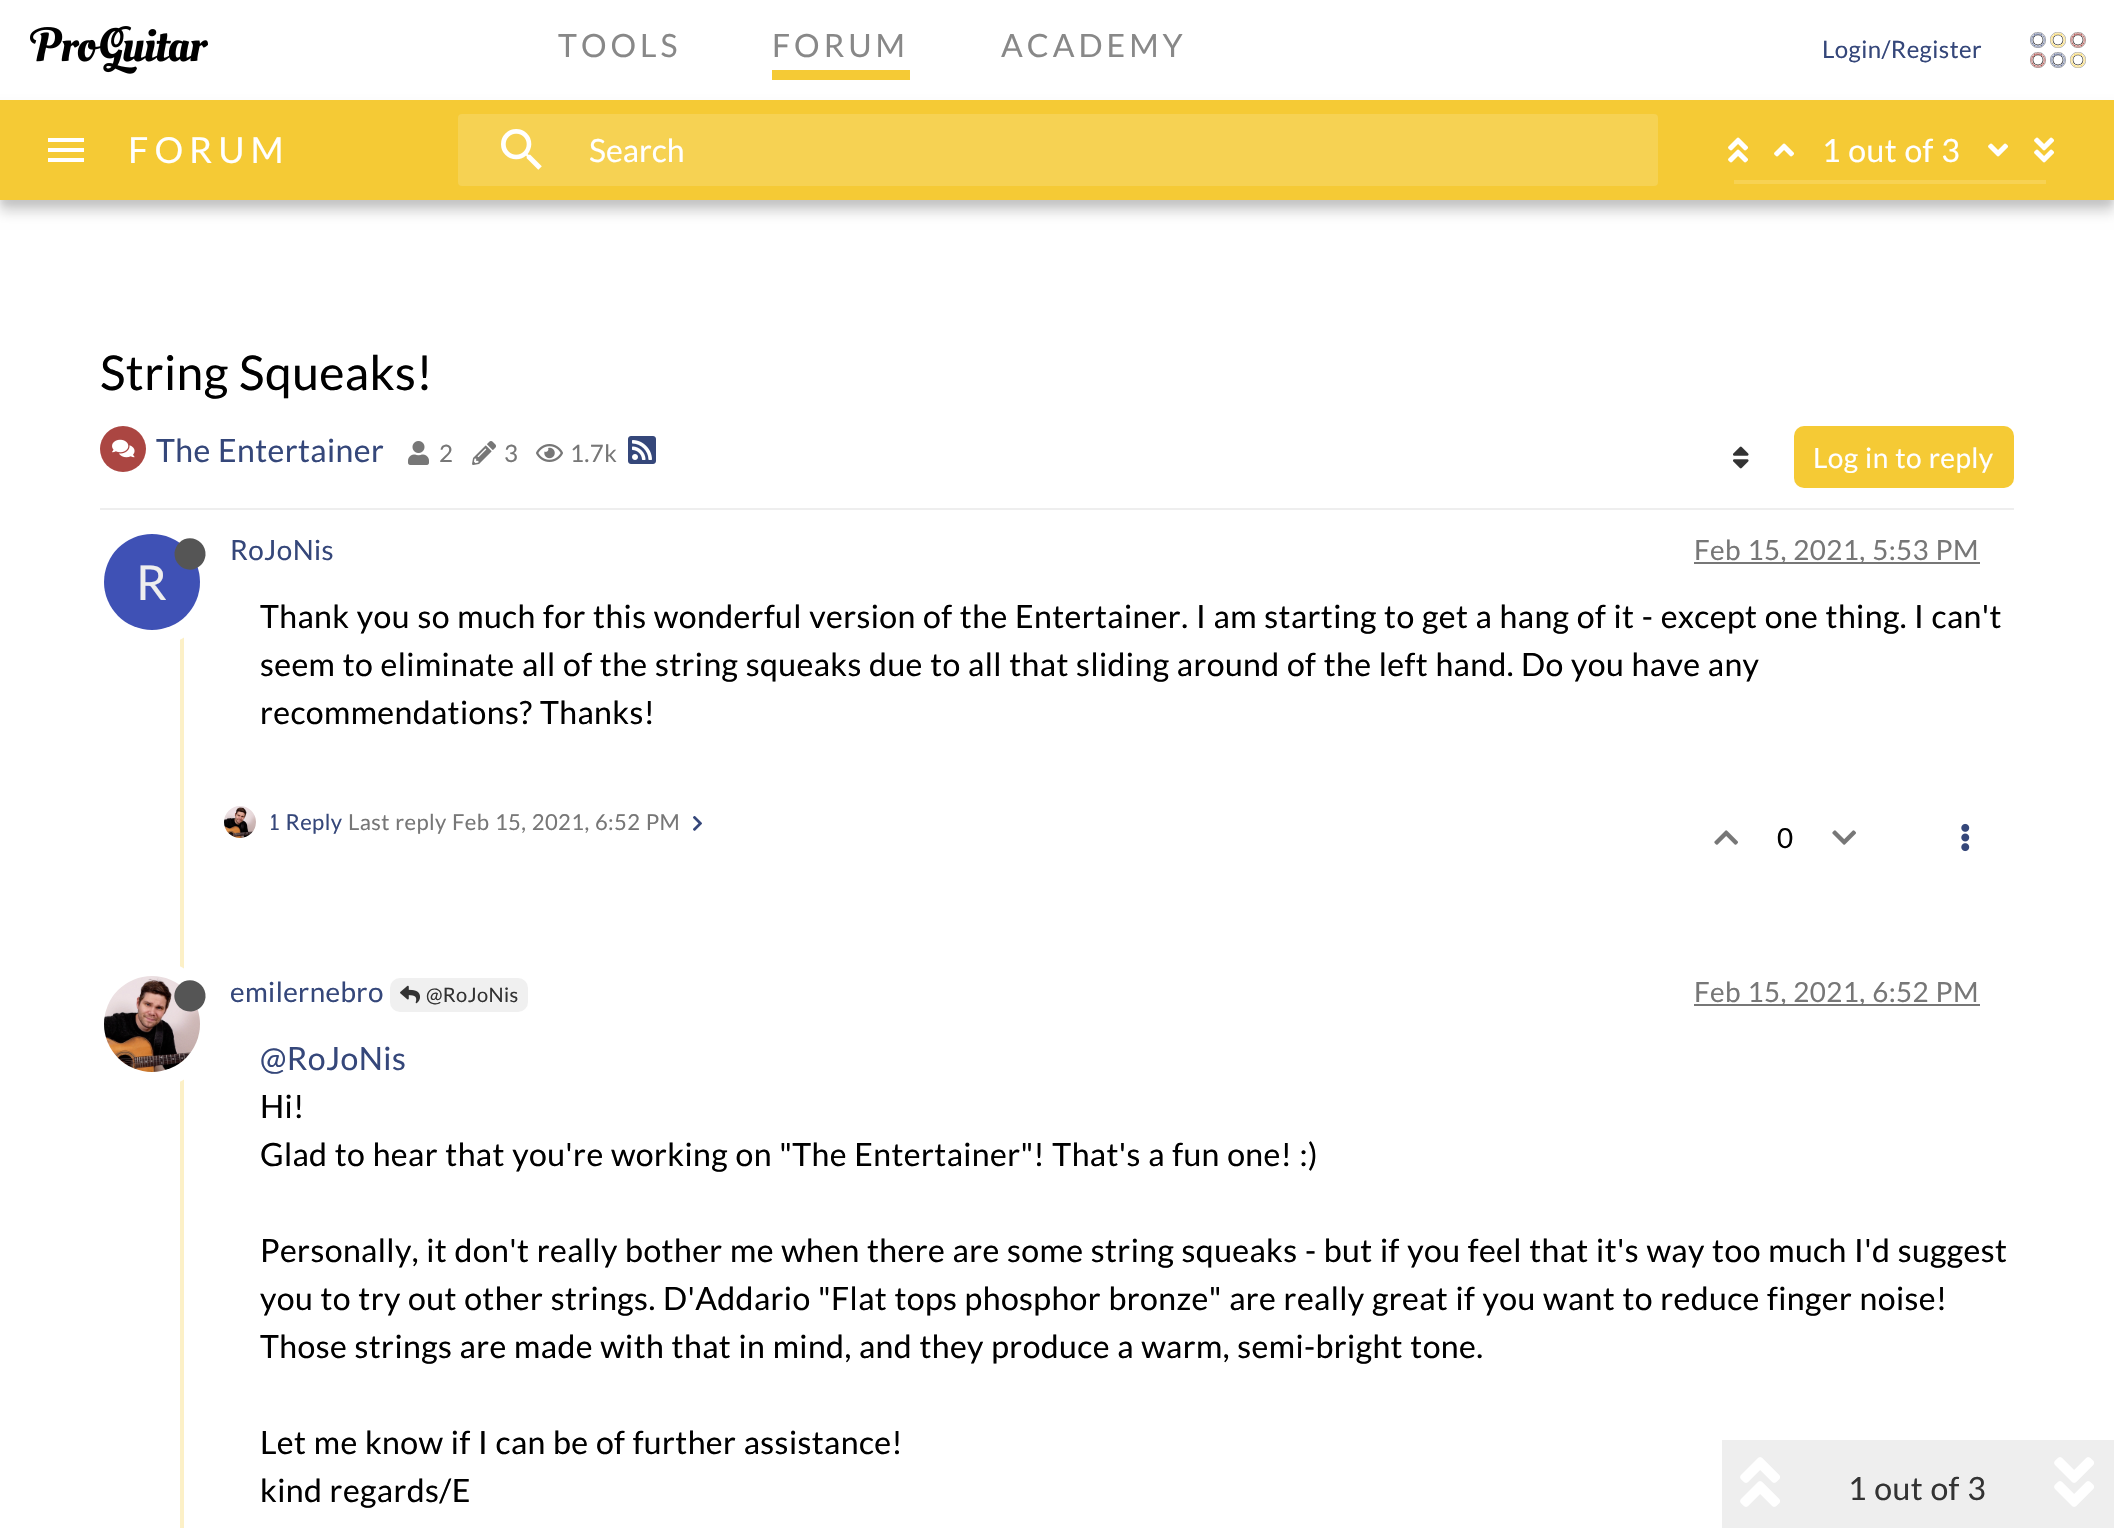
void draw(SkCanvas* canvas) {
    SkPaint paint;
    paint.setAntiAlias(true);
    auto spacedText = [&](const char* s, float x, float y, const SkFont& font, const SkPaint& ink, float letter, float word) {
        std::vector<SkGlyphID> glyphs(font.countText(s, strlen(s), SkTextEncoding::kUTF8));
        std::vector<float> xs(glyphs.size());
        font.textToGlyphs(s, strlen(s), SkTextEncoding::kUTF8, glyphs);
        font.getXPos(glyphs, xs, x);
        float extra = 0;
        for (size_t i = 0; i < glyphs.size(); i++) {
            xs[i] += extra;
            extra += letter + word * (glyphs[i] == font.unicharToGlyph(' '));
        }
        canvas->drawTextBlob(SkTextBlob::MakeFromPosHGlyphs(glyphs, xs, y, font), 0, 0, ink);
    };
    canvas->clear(0xFFFFFFFF);
    canvas->drawImageRect(SkImages::DeferredFromEncodedData(SkData::MakeFromFileName("img1.png")), SkRect::MakeXYWH(30, 26, 178, 48), SkSamplingOptions());
    SkFont font1(fontMgr->matchFamilyStyle("Lato", SkFontStyle::Normal()), 32);
    font1.setSubpixel(true);
    paint.setColor(0xFF888888);
    spacedText("TOOLS", 558, 57, font1, paint, 4, 0);
    spacedText("FORUM", 772, 57, font1, paint, 4, 0);
    paint.setColor(0xFFF5CA35);
    canvas->drawRect(SkRect::MakeXYWH(772, 70, 138, 10), paint);
    paint.setColor(0xFF888888);
    spacedText("ACADEMY", 1001, 57, font1, paint, 4, 0);
    SkFont font2(fontMgr->matchFamilyStyle("Lato", SkFontStyle::Normal()), 24);
    font2.setSubpixel(true);
    paint.setColor(0xFF35477A);
    spacedText("Login/Register", 1822, 58, font2, paint, 0.4f, 0);
    canvas->drawImageRect(SkImages::DeferredFromEncodedData(SkData::MakeFromFileName("img2.png")), SkRect::MakeXYWH(2030, 32, 16, 16), SkSamplingOptions());
    canvas->drawImageRect(SkImages::DeferredFromEncodedData(SkData::MakeFromFileName("img3.png")), SkRect::MakeXYWH(2050, 32, 16, 16), SkSamplingOptions());
    canvas->drawImageRect(SkImages::DeferredFromEncodedData(SkData::MakeFromFileName("img4.png")), SkRect::MakeXYWH(2070, 32, 16, 16), SkSamplingOptions());
    canvas->drawImageRect(SkImages::DeferredFromEncodedData(SkData::MakeFromFileName("img5.png")), SkRect::MakeXYWH(2030, 52, 16, 16), SkSamplingOptions());
    canvas->drawImageRect(SkImages::DeferredFromEncodedData(SkData::MakeFromFileName("img6.png")), SkRect::MakeXYWH(2050, 52, 16, 16), SkSamplingOptions());
    canvas->drawImageRect(SkImages::DeferredFromEncodedData(SkData::MakeFromFileName("img3.png")), SkRect::MakeXYWH(2070, 52, 16, 16), SkSamplingOptions());
    paint.setColor(0x29000000);
    paint.setMaskFilter(SkMaskFilter::MakeBlur(kNormal_SkBlurStyle, 6));
    canvas->drawRect(SkRect::MakeXYWH(0, 112, 2114, 100), paint);
    paint.setMaskFilter(nullptr);
    paint.setColor(0x14000000);
    paint.setMaskFilter(SkMaskFilter::MakeBlur(kNormal_SkBlurStyle, 3));
    canvas->drawRect(SkRect::MakeXYWH(0, 106, 2114, 100), paint);
    paint.setMaskFilter(nullptr);
    paint.setColor(0xFFF5CA35);
    canvas->drawRect(SkRect::MakeXYWH(0, 100, 2114, 100), paint);
    paint.setColor(0xFFFFFFFF);
    canvas->drawRect(SkRect::MakeXYWH(48, 138, 36, 4), paint);
    canvas->drawRect(SkRect::MakeXYWH(48, 148, 36, 4), paint);
    canvas->drawRect(SkRect::MakeXYWH(48, 158, 36, 4), paint);
    SkFont font3(fontMgr->matchFamilyStyle("Lato", SkFontStyle::Normal()), 36);
    font3.setSubpixel(true);
    spacedText("FORUM", 128, 163, font3, paint, 6, 0);
    paint.setColor(0xFFF6D253);
    canvas->drawRoundRect(SkRect::MakeXYWH(458, 114, 1200, 72), 4, 4, paint);
    canvas->drawImageRect(SkImages::DeferredFromEncodedData(SkData::MakeFromFileName("img7.png")), SkRect::MakeXYWH(501, 129, 41, 41), SkSamplingOptions());
    paint.setColor(0xFFFFFFFF);
    canvas->drawString("Search", 589, 162, font1, paint);
    canvas->drawImageRect(SkImages::DeferredFromEncodedData(SkData::MakeFromFileName("img8.png")), SkRect::MakeXYWH(1728, 137, 20, 26), SkSamplingOptions());
    canvas->drawImageRect(SkImages::DeferredFromEncodedData(SkData::MakeFromFileName("img9.png")), SkRect::MakeXYWH(1774, 143, 20, 14), SkSamplingOptions());
    spacedText("1 out of 3", 1822, 162, font1, paint, 0.4f, 0.8f);
    canvas->drawImageRect(SkImages::DeferredFromEncodedData(SkData::MakeFromFileName("img10.png")), SkRect::MakeXYWH(1988, 143, 20, 14), SkSamplingOptions());
    canvas->drawImageRect(SkImages::DeferredFromEncodedData(SkData::MakeFromFileName("img11.png")), SkRect::MakeXYWH(2034, 137, 20, 26), SkSamplingOptions());
    paint.setColor(0xFFF7D253);
    canvas->drawRect(SkRect::MakeXYWH(1734, 180, 312, 4), paint);
    SkFont font4(fontMgr->matchFamilyStyle("Lato", SkFontStyle::Normal()), 48);
    font4.setSubpixel(true);
    paint.setColor(0xFF000000);
    spacedText("String Squeaks!", 100, 390, font4, paint, 0.4f, 0.8f);
    paint.setColor(0xFFEEEEEE);
    canvas->drawRect(SkRect::MakeXYWH(100, 508, 1914, 2), paint);
    paint.setColor(0xFFAB4642);
    canvas->drawCircle(123, 449, 23, paint);
    canvas->drawImageRect(SkImages::DeferredFromEncodedData(SkData::MakeFromFileName("img12.png")), SkRect::MakeXYWH(112, 439, 23, 19), SkSamplingOptions());
    paint.setColor(0xFF35477A);
    spacedText("The Entertainer", 156, 462, font1, paint, 0.4f, 0.8f);
    canvas->drawImageRect(SkImages::DeferredFromEncodedData(SkData::MakeFromFileName("img13.png")), SkRect::MakeXYWH(408, 441, 21, 24), SkSamplingOptions());
    paint.setColor(0xFF777777);
    spacedText("2", 439, 462, font2, paint, 0.4f, 0);
    canvas->drawImageRect(SkImages::DeferredFromEncodedData(SkData::MakeFromFileName("img14.png")), SkRect::MakeXYWH(472, 441, 24, 24), SkSamplingOptions());
    spacedText("3", 504, 462, font2, paint, 0.4f, 0);
    canvas->drawImageRect(SkImages::DeferredFromEncodedData(SkData::MakeFromFileName("img15.png")), SkRect::MakeXYWH(536, 444, 27, 18), SkSamplingOptions());
    spacedText("1.7k", 570, 462, font2, paint, 0.4f, 0);
    canvas->drawImageRect(SkImages::DeferredFromEncodedData(SkData::MakeFromFileName("img16.png")), SkRect::MakeXYWH(628, 436, 28, 28), SkSamplingOptions());
    canvas->drawImageRect(SkImages::DeferredFromEncodedData(SkData::MakeFromFileName("img17.png")), SkRect::MakeXYWH(1733, 446, 16, 23), SkSamplingOptions());
    paint.setColor(0xFFF5CA35);
    canvas->drawRoundRect(SkRect::MakeXYWH(1794, 426, 220, 62), 10, 10, paint);
    SkFont font5(fontMgr->matchFamilyStyle("Lato", SkFontStyle::Normal()), 28);
    font5.setSubpixel(true);
    paint.setColor(0xFFFFFFFF);
    spacedText("Log in to reply", 1813, 468, font5, paint, 0.4f, 0.8f);
    paint.setColor(0xFFFCF0C7);
    canvas->drawRect(SkRect::MakeXYWH(180, 617, 4, 911), paint);
    SkFont font6(fontMgr->matchFamilyStyle("Lato", SkFontStyle::Normal()), 27.75f);
    font6.setSubpixel(true);
    paint.setColor(0xFF35477A);
    spacedText("RoJoNis", 230, 560, font6, paint, 0.4f, 0);
    paint.setColor(0xFF777777);
    canvas->drawRect(SkRect::MakeXYWH(1694, 562, 286, 2), paint);
    spacedText("Feb 15, 2021, 5:53 PM", 1694, 560, font6, paint, 0.4f, 0.8f);
    paint.setStyle(SkPaint::kStroke_Style);
    paint.setStrokeWidth(16);
    paint.setColor(0xFFFFFFFF);
    canvas->drawCircle(152, 582, 56, paint);
    paint.setStyle(SkPaint::kFill_Style);
    paint.setColor(0xFF3F51B5);
    canvas->drawCircle(152, 582, 48, paint);
    paint.setColor(0xFF555555);
    canvas->drawPath(SkPathBuilder().moveTo(179, 543).cubicTo(189.5f, 532.5f, 206.5f, 541, 205.5f, 555.5f).cubicTo(205, 559, 203.5f, 562.5f, 201, 565).cubicTo(190.5f, 575.5f, 173.5f, 567, 174.5f, 552.5f).cubicTo(175, 549, 176.5f, 545.5f, 179, 543).close().detach(), paint);
    paint.setColor(0xFFEEEEEE);
    spacedText("R", 136, 600, font4, paint, 0.4f, 0);
    paint.setColor(0xFF000000);
    spacedText("Thank you so much for this wonderful version of the Entertainer.", 260, 628, font1, paint, 0.4f, 0.8f);
    spacedText("I am starting to get a hang of it - except one thing.", 1196, 628, font1, paint, 0.4f, 0.8f);
    spacedText("I can't", 1914, 628, font1, paint, 0.4f, 0.8f);
    spacedText("seem to eliminate all of the string squeaks due to all that sliding around of the left hand.", 260, 676, font1, paint, 0.4f, 0.8f);
    spacedText("Do you have any", 1521, 676, font1, paint, 0.4f, 0.8f);
    spacedText("recommendations?", 260, 724, font1, paint, 0.4f, 0);
    spacedText("Thanks!", 540, 724, font1, paint, 0.4f, 0);
    SkFont font7(fontMgr->matchFamilyStyle("Lato", SkFontStyle::Normal()), 22);
    font7.setSubpixel(true);
    paint.setColor(0xFF35477A);
    spacedText("1 Reply", 267, 830, font7, paint, 0.4f, 0.8f);
    paint.setStyle(SkPaint::kStroke_Style);
    paint.setColor(0xFFFFFFFF);
    canvas->drawCircle(240, 822, 24, paint);
    canvas->drawImageRect(SkImages::DeferredFromEncodedData(SkData::MakeFromFileName("img18.png")), SkRect::MakeXYWH(224, 806, 32, 32), SkSamplingOptions());
    paint.setStyle(SkPaint::kFill_Style);
    paint.setColor(0xFF777777);
    spacedText("Last reply", 348, 830, font7, paint, 0.4f, 0.8f);
    spacedText("Feb 15, 2021, 6:52 PM", 452, 830, font7, paint, 0.4f, 0.8f);
    canvas->drawImageRect(SkImages::DeferredFromEncodedData(SkData::MakeFromFileName("img19.png")), SkRect::MakeXYWH(693, 816, 9, 15), SkSamplingOptions());
    canvas->drawImageRect(SkImages::DeferredFromEncodedData(SkData::MakeFromFileName("img20.png")), SkRect::MakeXYWH(1714, 830, 24, 15), SkSamplingOptions());
    paint.setColor(0xFF000000);
    spacedText("0", 1777, 848, font6, paint, 0.4f, 0);
    canvas->drawImageRect(SkImages::DeferredFromEncodedData(SkData::MakeFromFileName("img21.png")), SkRect::MakeXYWH(1832, 830, 24, 15), SkSamplingOptions());
    canvas->drawImageRect(SkImages::DeferredFromEncodedData(SkData::MakeFromFileName("img22.png")), SkRect::MakeXYWH(1961, 823, 9, 29), SkSamplingOptions());
    paint.setStyle(SkPaint::kStroke_Style);
    paint.setColor(0xFFFFFFFF);
    canvas->drawCircle(152, 1024, 56, paint);
    canvas->drawImageRect(SkImages::DeferredFromEncodedData(SkData::MakeFromFileName("img23.png")), SkRect::MakeXYWH(104, 976, 96, 96), SkSamplingOptions());
    paint.setStyle(SkPaint::kFill_Style);
    paint.setColor(0xFF555555);
    canvas->drawPath(SkPathBuilder().moveTo(179, 985).cubicTo(189.5f, 974.5f, 206.5f, 983, 205.5f, 997.5f).cubicTo(205, 1001, 203.5f, 1004.5f, 201, 1007).cubicTo(198.5f, 1009.5f, 195, 1011, 191.5f, 1011.5f).cubicTo(177, 1012.5f, 168.5f, 995.5f, 179, 985).close().detach(), paint);
    paint.setColor(0xFF35477A);
    spacedText("emilernebro", 230, 1002, font6, paint, 0.4f, 0);
    paint.setColor(0xFFF0F0F0);
    canvas->drawRoundRect(SkRect::MakeXYWH(390, 978, 138, 34), 10, 10, paint);
    canvas->drawImageRect(SkImages::DeferredFromEncodedData(SkData::MakeFromFileName("img24.png")), SkRect::MakeXYWH(400, 985, 20, 19), SkSamplingOptions());
    SkFont font8(fontMgr->matchFamilyStyle("Lato", SkFontStyle::Normal()), 20);
    font8.setSubpixel(true);
    paint.setColor(0xFF333333);
    spacedText("@RoJoNis", 426, 1002, font8, paint, 0.4f, 0);
    paint.setColor(0xFF777777);
    canvas->drawRect(SkRect::MakeXYWH(1694, 1004, 286, 2), paint);
    spacedText("Feb 15, 2021, 6:52 PM", 1694, 1002, font6, paint, 0.4f, 0.8f);
    paint.setColor(0xFF35477A);
    spacedText("@RoJoNis", 260, 1070, font1, paint, 0.4f, 0);
    paint.setColor(0xFF000000);
    spacedText("Hi!", 260, 1118, font1, paint, 0.4f, 0);
    spacedText("Glad to hear that you're working on \"The Entertainer\"! That's a fun one! :)", 260, 1166, font1, paint, 0.4f, 0.8f);
    spacedText("Personally, it don't really bother me when there are some string squeaks - but if you feel that it's way too much I'd suggest", 260, 1262, font1, paint, 0.4f, 0.8f);
    spacedText("you to try out other strings. D'Addario \"Flat tops phosphor bronze\" are really great if you want to reduce finger noise!", 260, 1310, font1, paint, 0.4f, 0.75f);
    spacedText("Those strings are made with that in mind, and they produce a warm, semi-bright tone.", 260, 1358, font1, paint, 0.4f, 0.8f);
    spacedText("Let me know if I can be of further assistance!", 260, 1454, font1, paint, 0.4f, 0.8f);
    spacedText("kind regards/E", 260, 1502, font1, paint, 0.4f, 0.8f);
    paint.setColor(0xFFEEEEEE);
    canvas->drawRect(SkRect::MakeXYWH(1722, 1440, 392, 88), paint);
    canvas->drawImageRect(SkImages::DeferredFromEncodedData(SkData::MakeFromFileName("img25.png")), SkRect::MakeXYWH(1740, 1457, 40, 50), SkSamplingOptions());
    paint.setColor(0xFF333333);
    spacedText("1 out of 3", 1848, 1500, font1, paint, 0.4f, 0.8f);
    canvas->drawImageRect(SkImages::DeferredFromEncodedData(SkData::MakeFromFileName("img26.png")), SkRect::MakeXYWH(2054, 1457, 40, 50), SkSamplingOptions());
}
